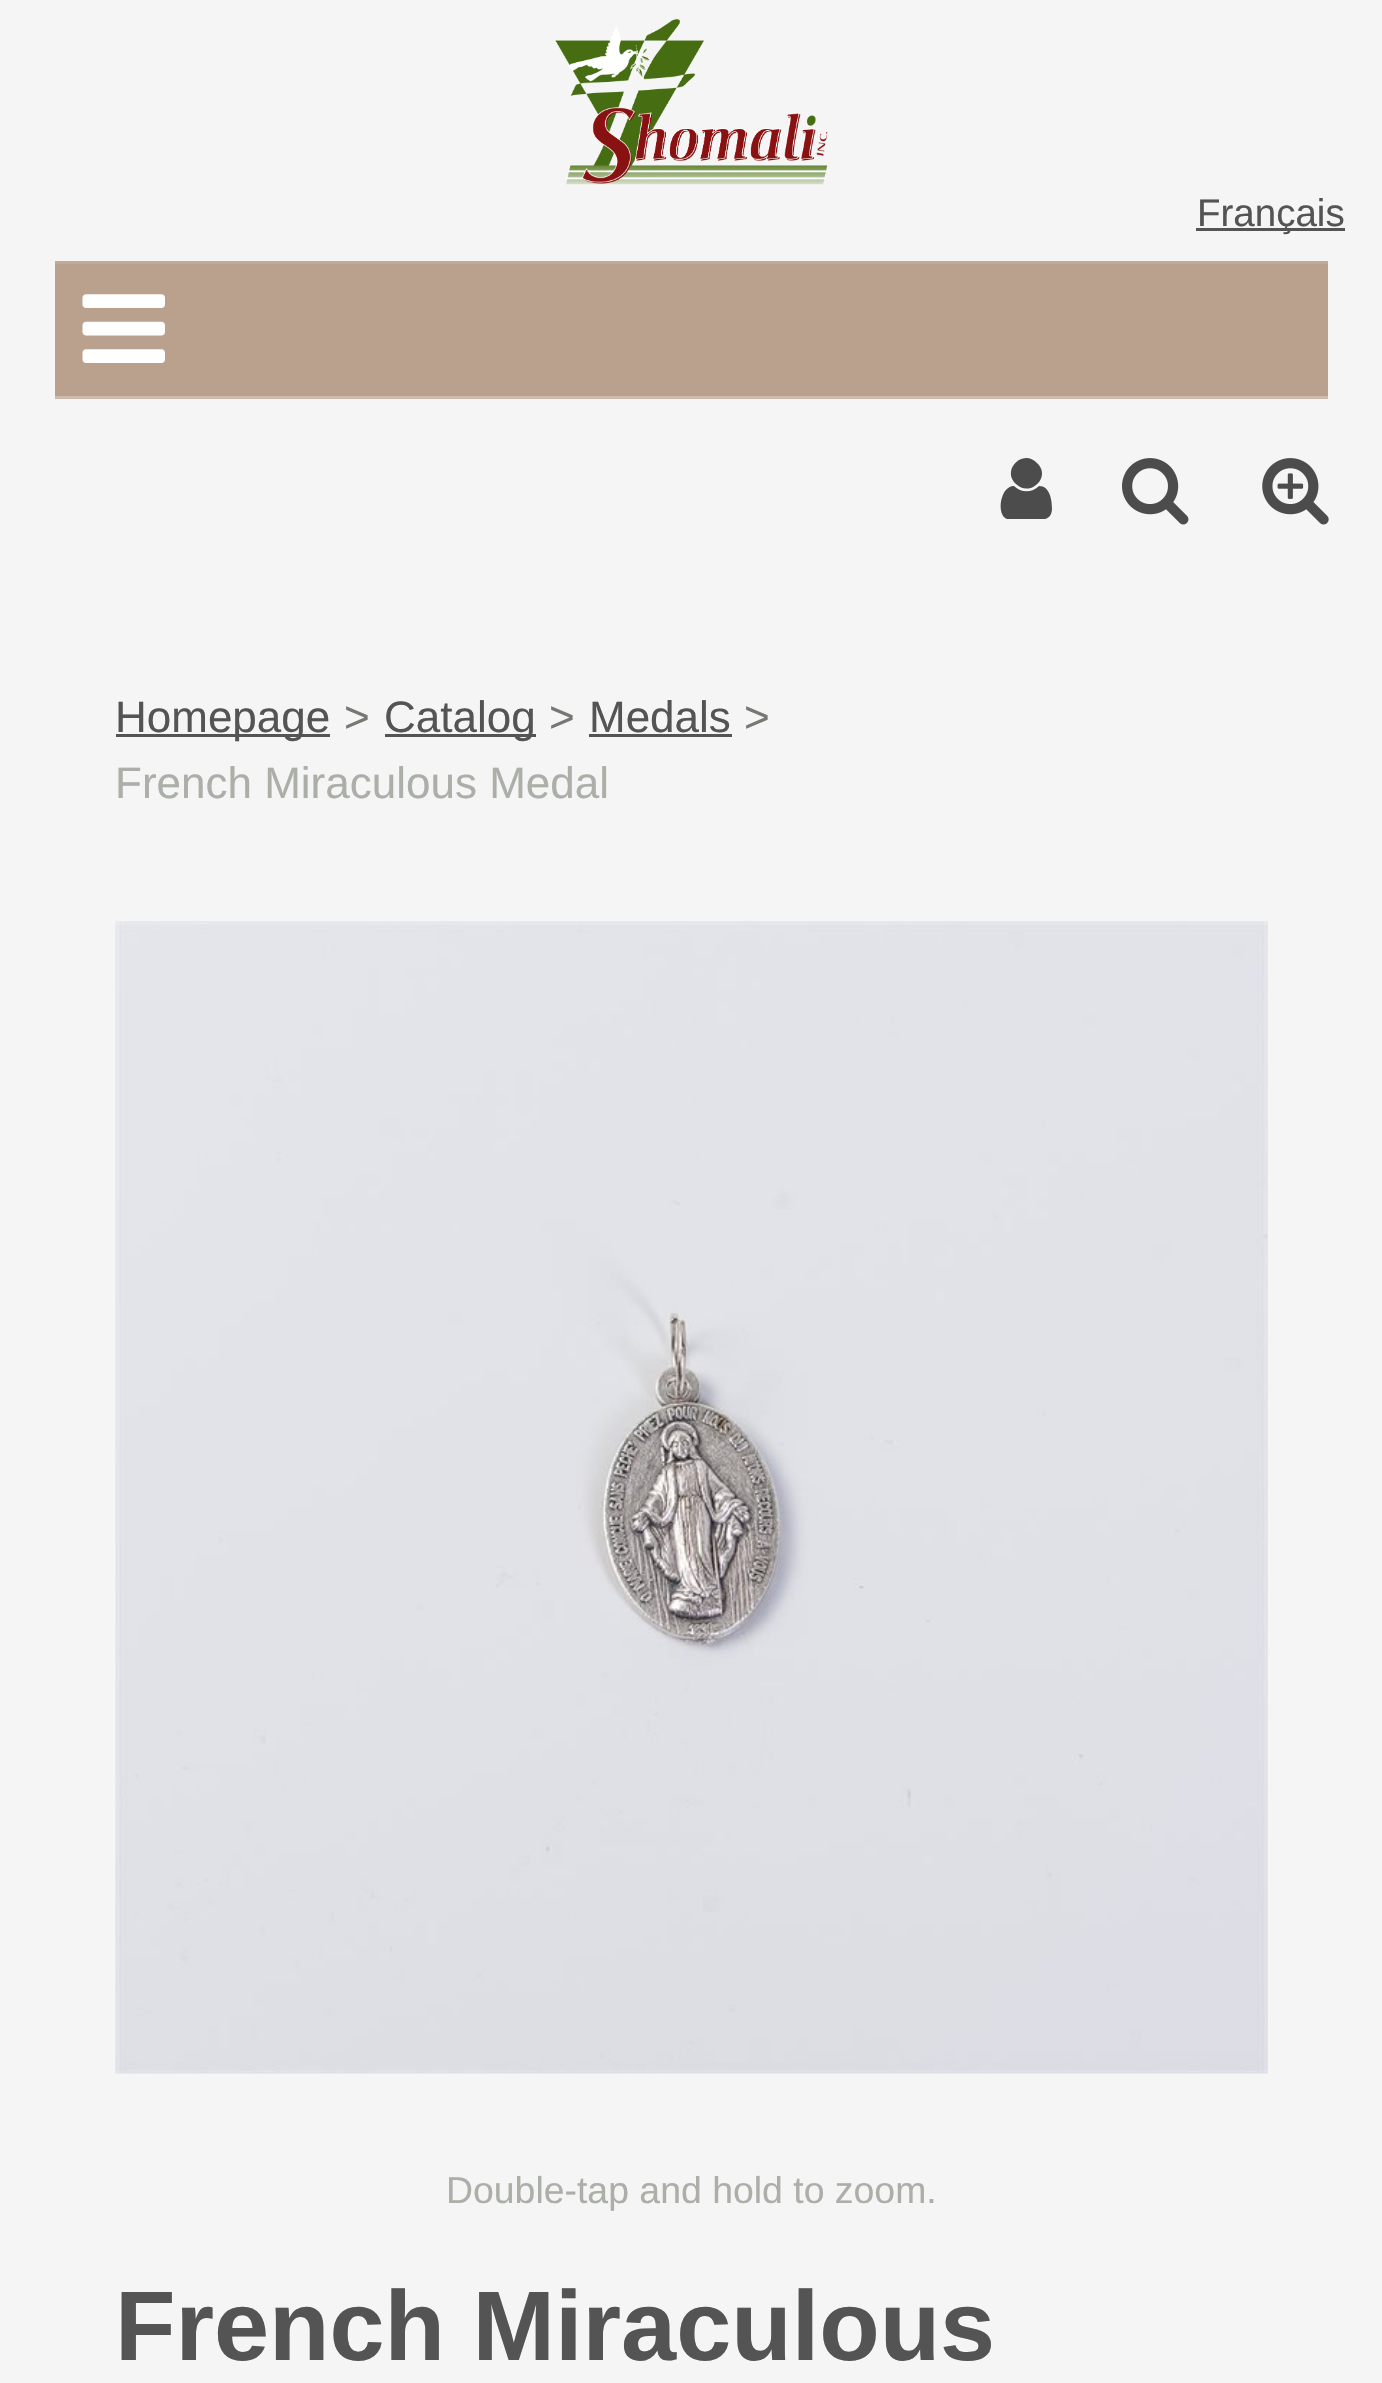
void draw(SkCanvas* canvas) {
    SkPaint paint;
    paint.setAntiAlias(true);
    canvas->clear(0xFFF5F5F5);
    canvas->drawImageRect(SkImages::DeferredFromEncodedData(SkData::MakeFromFileName("img1.png")), SkRect::MakeXYWH(555, 19, 273, 166), SkSamplingOptions());
    paint.setColor(0xFF545454);
    canvas->drawRect(SkRect::MakeXYWH(1196, 228, 149, 3), paint);
    SkFont font1(fontMgr->matchFamilyStyle("Liberation Sans", SkFontStyle::Normal()), 38.5f);
    font1.setSubpixel(true);
    canvas->drawString("Français", 1197, 226, font1, paint);
    paint.setColor(0xFFB9A18E);
    canvas->drawRect(SkRect::MakeXYWH(55, 264, 1273, 132), paint);
    paint.setColor(0xFFC0AA99);
    canvas->drawRect(SkRect::MakeXYWH(55, 261, 1273, 3), paint);
    canvas->drawImageRect(SkImages::DeferredFromEncodedData(SkData::MakeFromFileName("img2.png")), SkRect::MakeXYWH(82, 294, 83, 69), SkSamplingOptions());
    paint.setColor(0xFFCDBBAD);
    canvas->drawRect(SkRect::MakeXYWH(55, 396, 1273, 3), paint);
    paint.setColor(0xFF4C4C4C);
    canvas->drawPath(SkPathBuilder().moveTo(1052, 509).cubicTo(1052, 513, 1050, 518, 1045, 519).lineTo(1015, 519).lineTo(1007, 519).cubicTo(996, 515, 1000, 486, 1014, 486).cubicTo(1021, 493, 1032, 493, 1039, 486).cubicTo(1050, 486, 1052, 500, 1052, 509).close().moveTo(1037, 463).cubicTo(1052, 477, 1030, 498, 1016, 484).cubicTo(1001, 470, 1023, 448, 1037, 463).close().detach(), paint);
    canvas->drawImageRect(SkImages::DeferredFromEncodedData(SkData::MakeFromFileName("img3.png")), SkRect::MakeXYWH(1122, 458, 67, 67), SkSamplingOptions());
    canvas->drawImageRect(SkImages::DeferredFromEncodedData(SkData::MakeFromFileName("img4.png")), SkRect::MakeXYWH(1262, 458, 67, 67), SkSamplingOptions());
    paint.setColor(0xFF545454);
    canvas->drawRect(SkRect::MakeXYWH(116, 734, 214, 3), paint);
    SkFont font2(fontMgr->matchFamilyStyle("Liberation Sans", SkFontStyle::Normal()), 44);
    font2.setSubpixel(true);
    canvas->drawString("Homepage", 115, 732, font2, paint);
    paint.setColor(0xFF787774);
    canvas->drawString(">", 344, 732, font2, paint);
    paint.setColor(0xFF545454);
    canvas->drawRect(SkRect::MakeXYWH(385, 734, 151, 3), paint);
    canvas->drawString("Catalog", 384, 732, font2, paint);
    paint.setColor(0xFF787774);
    canvas->drawString(">", 549, 732, font2, paint);
    paint.setColor(0xFF545454);
    canvas->drawString("Medals", 589, 732, font2, paint);
    canvas->drawRect(SkRect::MakeXYWH(589, 734, 143, 3), paint);
    paint.setColor(0xFF787774);
    canvas->drawString(">", 744, 732, font2, paint);
    paint.setColor(0xFFACAFA7);
    canvas->drawString("French Miraculous Medal", 115, 798, font2, paint);
    canvas->drawImageRect(SkImages::DeferredFromEncodedData(SkData::MakeFromFileName("img5.png")), SkRect::MakeXYWH(115, 921, 1153, 1153), SkSamplingOptions());
    SkFont font3(fontMgr->matchFamilyStyle("Liberation Sans", SkFontStyle::Normal()), 37.4f);
    font3.setSubpixel(true);
    canvas->drawString("Double-tap and hold to zoom.", 446, 2203, font3, paint);
    SkFont font4(fontMgr->matchFamilyStyle("Liberation Sans", SkFontStyle::Bold()), 99);
    font4.setSubpixel(true);
    paint.setColor(0xFF545454);
    canvas->drawString("French Miraculous", 115, 2360, font4, paint);
}
